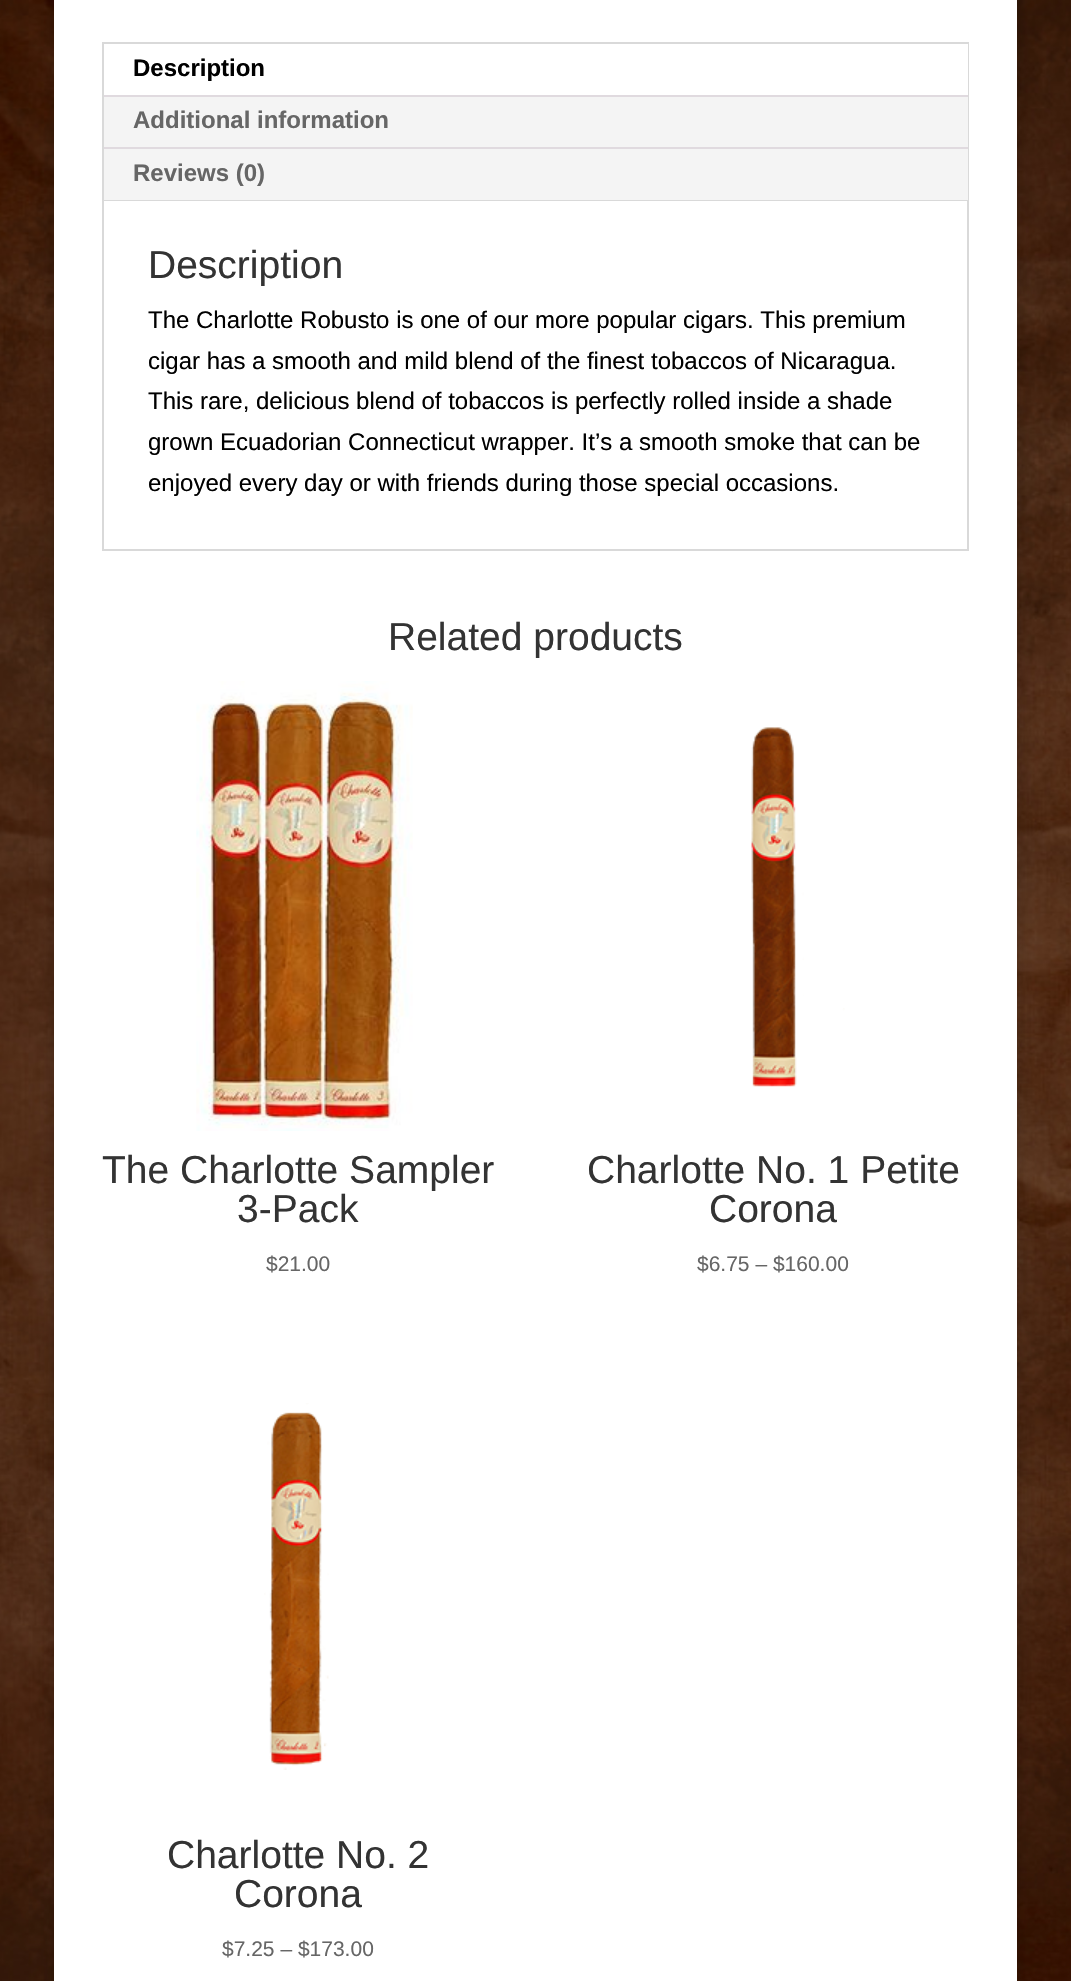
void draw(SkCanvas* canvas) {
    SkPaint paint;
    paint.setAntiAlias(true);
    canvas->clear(0xFFFFFFFF);
    canvas->drawImageRect(SkImages::DeferredFromEncodedData(SkData::MakeFromFileName("img1.png")), SkRect::MakeXYWH(0, 0, 1071, 1981), SkSamplingOptions());
    paint.setColor(0x33000000);
    paint.setMaskFilter(SkMaskFilter::MakeBlur(kNormal_SkBlurStyle, 7.5f));
    canvas->drawRect(SkRect::MakeXYWH(54, -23, 963, 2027), paint);
    paint.setMaskFilter(nullptr);
    paint.setColor(0xFFFFFFFF);
    canvas->drawRect(SkRect::MakeXYWH(54, 0, 963, 1981), paint);
    paint.setStyle(SkPaint::kStroke_Style);
    paint.setStrokeWidth(2);
    paint.setColor(0xFFD9D9D9);
    canvas->drawRect(SkRect::MakeXYWH(103, 43, 865, 507), paint);
    paint.setStyle(SkPaint::kFill_Style);
    paint.setColor(0xFFF4F4F4);
    canvas->drawRect(SkRect::MakeXYWH(104, 97, 864, 103), paint);
    paint.setColor(0xFFFFFFFF);
    canvas->drawRect(SkRect::MakeXYWH(967, 44, 1, 51), paint);
    paint.setColor(0xFFE0DADF);
    canvas->drawRect(SkRect::MakeXYWH(104, 95, 864, 2), paint);
    SkFont font1(fontMgr->matchFamilyStyle("Liberation Sans", SkFontStyle::Bold()), 24);
    font1.setSubpixel(true);
    paint.setColor(0xFF000000);
    canvas->drawString("Description", 133, 76, font1, paint);
    paint.setColor(0xFFE0DADF);
    canvas->drawRect(SkRect::MakeXYWH(104, 147, 864, 2), paint);
    paint.setColor(0xFF666666);
    canvas->drawString("Additional information", 133, 128, font1, paint);
    canvas->drawString("Reviews (0)", 133, 181, font1, paint);
    paint.setColor(0xFFD9D9D9);
    canvas->drawRect(SkRect::MakeXYWH(104, 200, 864, 1), paint);
    SkFont font2(fontMgr->matchFamilyStyle("Liberation Sans", SkFontStyle::Normal()), 39);
    font2.setSubpixel(true);
    paint.setColor(0xFF333333);
    canvas->drawString("Description", 148, 278, font2, paint);
    SkFont font3(fontMgr->matchFamilyStyle("Liberation Sans", SkFontStyle::Normal()), 24);
    font3.setSubpixel(true);
    paint.setColor(0xFF000000);
    canvas->drawString("The Charlotte Robusto is one of our more popular cigars. This premium", 148, 328, font3, paint);
    canvas->drawString("cigar has a smooth and mild blend of the finest tobaccos of Nicaragua.", 148, 369, font3, paint);
    canvas->drawString("This rare, delicious blend of tobaccos is perfectly rolled inside a shade", 148, 409, font3, paint);
    canvas->drawString("grown Ecuadorian Connecticut wrapper. It’s a smooth smoke that can be", 148, 450, font3, paint);
    canvas->drawString("enjoyed every day or with friends during those special occasions.", 148, 491, font3, paint);
    paint.setColor(0xFF333333);
    canvas->drawString("Related products", 388, 650, font2, paint);
    canvas->drawImageRect(SkImages::DeferredFromEncodedData(SkData::MakeFromFileName("img2.png")), SkRect::MakeXYWH(196, 681, 217, 450), SkSamplingOptions());
    canvas->drawString("The Charlotte Sampler", 102, 1183, font2, paint);
    canvas->drawString("3-Pack", 237, 1222, font2, paint);
    SkFont font4(fontMgr->matchFamilyStyle("Liberation Sans", SkFontStyle::Normal()), 21);
    font4.setSubpixel(true);
    paint.setColor(0xFF666666);
    canvas->drawString("$21.00", 266, 1271, font4, paint);
    canvas->drawImageRect(SkImages::DeferredFromEncodedData(SkData::MakeFromFileName("img3.png")), SkRect::MakeXYWH(751, 727, 94, 360), SkSamplingOptions());
    paint.setColor(0xFF333333);
    canvas->drawString("Charlotte No. 1 Petite", 587, 1183, font2, paint);
    canvas->drawString("Corona", 709, 1222, font2, paint);
    paint.setColor(0xFF666666);
    canvas->drawString("$6.75 – $160.00", 697, 1271, font4, paint);
    canvas->drawImageRect(SkImages::DeferredFromEncodedData(SkData::MakeFromFileName("img4.png")), SkRect::MakeXYWH(264, 1403, 65, 367), SkSamplingOptions());
    paint.setColor(0xFF333333);
    canvas->drawString("Charlotte No. 2", 167, 1868, font2, paint);
    canvas->drawString("Corona", 234, 1907, font2, paint);
    paint.setColor(0xFF666666);
    canvas->drawString("$7.25 – $173.00", 222, 1956, font4, paint);
}
